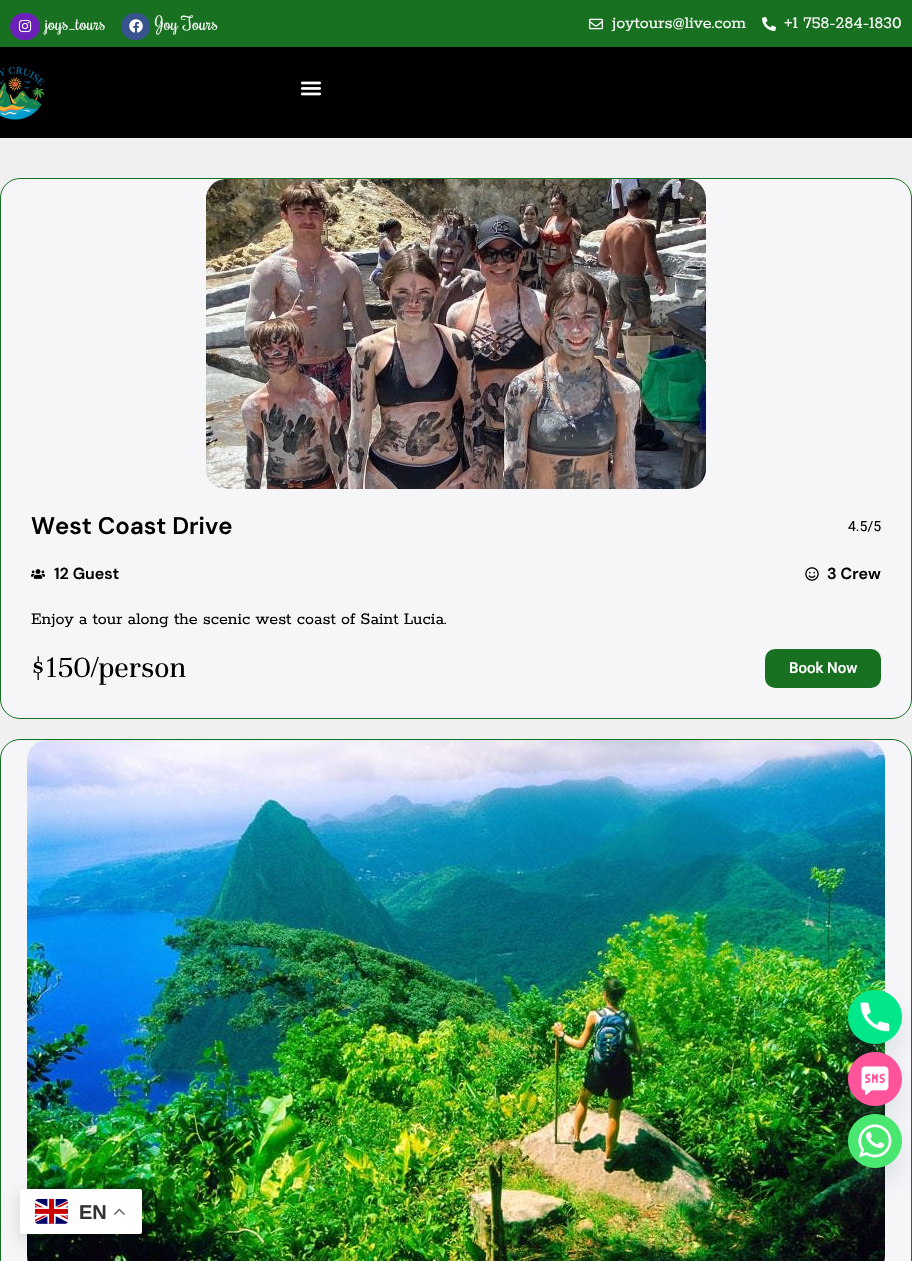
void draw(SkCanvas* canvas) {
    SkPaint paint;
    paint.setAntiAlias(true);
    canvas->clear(0xFF187021);
    paint.setColor(0xFF6A20B9);
    canvas->drawRoundRect(SkRect::MakeXYWH(10, 13, 30, 27), 13.5f, 13.5f, paint);
    canvas->drawImageRect(SkImages::DeferredFromEncodedData(SkData::MakeFromFileName("img1.png")), SkRect::MakeXYWH(18, 19, 14, 14), SkSamplingOptions());
    SkFont font1(fontMgr->matchFamilyStyle("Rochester", SkFontStyle::Normal()), 18);
    font1.setSubpixel(true);
    paint.setColor(0xFFFFFFFF);
    canvas->drawString("joys_tours", 45, 30, font1, paint);
    paint.setColor(0xFF36538D);
    canvas->drawRoundRect(SkRect::MakeXYWH(121, 13, 29, 27), 13.5f, 13.5f, paint);
    canvas->drawImageRect(SkImages::DeferredFromEncodedData(SkData::MakeFromFileName("img2.png")), SkRect::MakeXYWH(129, 19, 14, 14), SkSamplingOptions());
    paint.setColor(0xFFFFFFFF);
    canvas->drawString("Joy Tours", 155, 30, font1, paint);
    canvas->drawImageRect(SkImages::DeferredFromEncodedData(SkData::MakeFromFileName("img3.png")), SkRect::MakeXYWH(589, 18, 14, 12), SkSamplingOptions());
    SkFont font2(fontMgr->matchFamilyStyle("Rokkitt", SkFontStyle::Normal()), 18);
    font2.setSubpixel(true);
    canvas->drawString("joytours@live.com", 612, 28, font2, paint);
    canvas->drawImageRect(SkImages::DeferredFromEncodedData(SkData::MakeFromFileName("img4.png")), SkRect::MakeXYWH(762, 17, 14, 14), SkSamplingOptions());
    canvas->drawString("+1 758-284-1830", 784, 28, font2, paint);
    paint.setColor(0xFF000000);
    canvas->drawRect(SkRect::MakeXYWH(0, 47, 912, 91), paint);
    canvas->drawImageRect(SkImages::DeferredFromEncodedData(SkData::MakeFromFileName("img5.png")), SkRect::MakeXYWH(0, 66, 45, 54), SkSamplingOptions());
    canvas->drawImageRect(SkImages::DeferredFromEncodedData(SkData::MakeFromFileName("img6.png")), SkRect::MakeXYWH(300, 81, 22, 15), SkSamplingOptions());
    paint.setColor(0xFFF0F0F0);
    canvas->drawRect(SkRect::MakeXYWH(0, 138, 912, 621), paint);
    paint.setColor(0xFFF6F6F9);
    canvas->drawRoundRect(SkRect::MakeXYWH(0.5f, 178.5f, 911, 540), 19.5f, 19.5f, paint);
    paint.setStyle(SkPaint::kStroke_Style);
    paint.setStrokeWidth(1);
    paint.setColor(0xFF187021);
    canvas->drawRoundRect(SkRect::MakeXYWH(0.5f, 178.5f, 911, 540), 19.5f, 19.5f, paint);
    canvas->drawImageRect(SkImages::DeferredFromEncodedData(SkData::MakeFromFileName("img7.png")), SkRect::MakeXYWH(206, 179, 500, 310), SkSamplingOptions());
    SkFont font3(fontMgr->matchFamilyStyle("DM Sans", SkFontStyle(600, SkFontStyle::kNormal_Width, SkFontStyle::kUpright_Slant)), 24);
    font3.setSubpixel(true);
    paint.setStyle(SkPaint::kFill_Style);
    paint.setColor(0xFF000000);
    canvas->drawString("West Coast Drive", 31, 534, font3, paint);
    SkFont font4(fontMgr->matchFamilyStyle("Roboto", SkFontStyle::Normal()), 14);
    font4.setSubpixel(true);
    canvas->drawString("4.5/5", 848, 531, font4, paint);
    canvas->drawImageRect(SkImages::DeferredFromEncodedData(SkData::MakeFromFileName("img8.png")), SkRect::MakeXYWH(31, 569, 14, 10), SkSamplingOptions());
    SkFont font5(fontMgr->matchFamilyStyle("DM Sans", SkFontStyle(600, SkFontStyle::kNormal_Width, SkFontStyle::kUpright_Slant)), 16);
    font5.setSubpixel(true);
    canvas->drawString("12 Guest", 54, 579, font5, paint);
    canvas->drawImageRect(SkImages::DeferredFromEncodedData(SkData::MakeFromFileName("img9.png")), SkRect::MakeXYWH(805, 567, 14, 14), SkSamplingOptions());
    canvas->drawString("3 Crew", 827, 579, font5, paint);
    canvas->drawString("Enjoy a tour along the scenic west coast of Saint Lucia.", 31, 624, font2, paint);
    SkFont font6(fontMgr->matchFamilyStyle("Unna", SkFontStyle::Normal()), 32);
    font6.setSubpixel(true);
    canvas->drawString("$150/person", 31, 677, font6, paint);
    paint.setColor(0xFF187021);
    canvas->drawRoundRect(SkRect::MakeXYWH(765, 649, 116, 39), 10, 10, paint);
    SkFont font7(fontMgr->matchFamilyStyle("Roboto", SkFontStyle(500, SkFontStyle::kNormal_Width, SkFontStyle::kUpright_Slant)), 15);
    font7.setSubpixel(true);
    paint.setColor(0xFFFFFFFF);
    canvas->drawString("Book Now", 789, 673, font7, paint);
    paint.setColor(0xFFF6F6F9);
    canvas->drawRoundRect(SkRect::MakeXYWH(0.5f, 739.5f, 911, 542), 19.5f, 19.5f, paint);
    paint.setStyle(SkPaint::kStroke_Style);
    paint.setColor(0xFF187021);
    canvas->drawRoundRect(SkRect::MakeXYWH(0.5f, 739.5f, 911, 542), 19.5f, 19.5f, paint);
    canvas->drawImageRect(SkImages::DeferredFromEncodedData(SkData::MakeFromFileName("img10.png")), SkRect::MakeXYWH(27, 740, 858, 521), SkSamplingOptions());
    paint.setStyle(SkPaint::kFill_Style);
    paint.setColor(0x26000000);
    paint.setMaskFilter(SkMaskFilter::MakeBlur(kNormal_SkBlurStyle, 7.5f));
    canvas->drawRoundRect(SkRect::MakeXYWH(20, 1194, 122, 45), 2, 2, paint);
    paint.setMaskFilter(nullptr);
    paint.setColor(0xFFFFFFFF);
    canvas->drawRoundRect(SkRect::MakeXYWH(20, 1189, 122, 45), 2, 2, paint);
    canvas->drawImageRect(SkImages::DeferredFromEncodedData(SkData::MakeFromFileName("img11.png")), SkRect::MakeXYWH(35, 1199, 33, 25), SkSamplingOptions());
    SkFont font8(fontMgr->matchFamilyStyle("Liberation Sans", SkFontStyle::Bold()), 20);
    font8.setSubpixel(true);
    paint.setColor(0xFF333333);
    canvas->drawString("EN", 79, 1219, font8, paint);
    canvas->drawImageRect(SkImages::DeferredFromEncodedData(SkData::MakeFromFileName("img12.png")), SkRect::MakeXYWH(114, 1208, 11, 7), SkSamplingOptions());
    paint.setColor(0x2949687E);
    paint.setMaskFilter(SkMaskFilter::MakeBlur(kNormal_SkBlurStyle, 12));
    canvas->drawRoundRect(SkRect::MakeXYWH(848, 1006, 54, 54), 27, 27, paint);
    paint.setMaskFilter(nullptr);
    canvas->drawImageRect(SkImages::DeferredFromEncodedData(SkData::MakeFromFileName("img13.png")), SkRect::MakeXYWH(848, 990, 54, 54), SkSamplingOptions());
    paint.setMaskFilter(SkMaskFilter::MakeBlur(kNormal_SkBlurStyle, 12));
    canvas->drawRoundRect(SkRect::MakeXYWH(848, 1068, 54, 54), 27, 27, paint);
    paint.setMaskFilter(nullptr);
    canvas->drawImageRect(SkImages::DeferredFromEncodedData(SkData::MakeFromFileName("img14.png")), SkRect::MakeXYWH(848, 1052, 54, 54), SkSamplingOptions());
    paint.setMaskFilter(SkMaskFilter::MakeBlur(kNormal_SkBlurStyle, 12));
    canvas->drawRoundRect(SkRect::MakeXYWH(848, 1130, 54, 54), 27, 27, paint);
    paint.setMaskFilter(nullptr);
    canvas->drawImageRect(SkImages::DeferredFromEncodedData(SkData::MakeFromFileName("img15.png")), SkRect::MakeXYWH(848, 1114, 54, 54), SkSamplingOptions());
}
